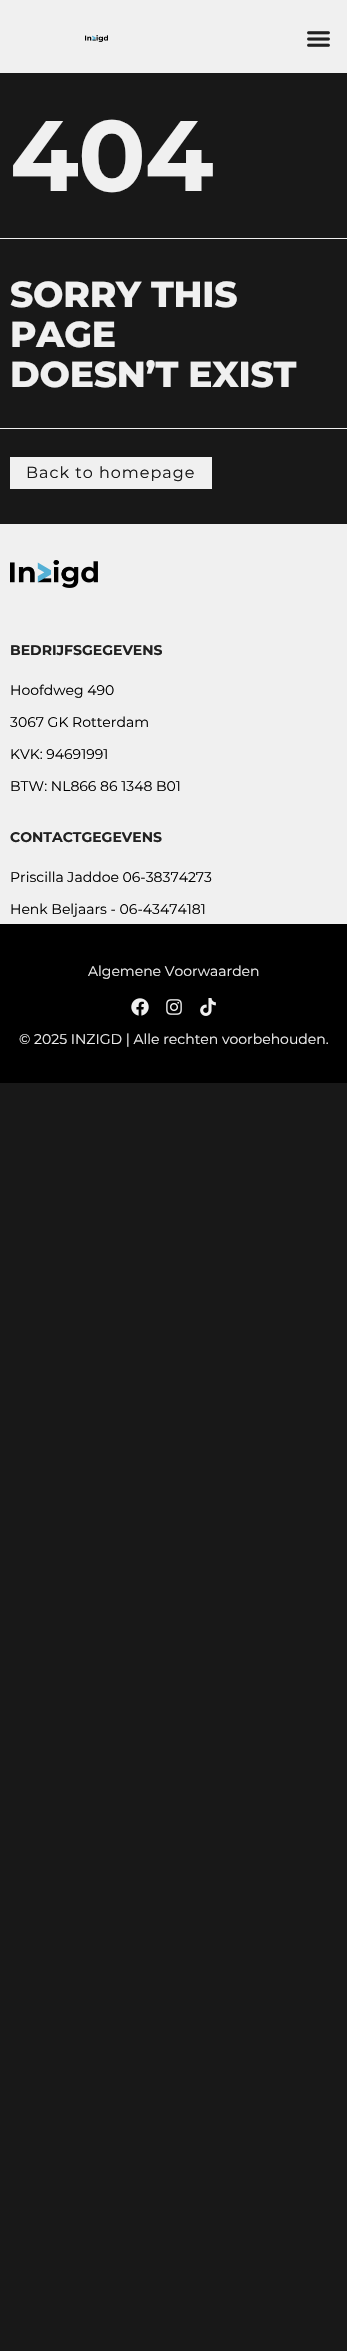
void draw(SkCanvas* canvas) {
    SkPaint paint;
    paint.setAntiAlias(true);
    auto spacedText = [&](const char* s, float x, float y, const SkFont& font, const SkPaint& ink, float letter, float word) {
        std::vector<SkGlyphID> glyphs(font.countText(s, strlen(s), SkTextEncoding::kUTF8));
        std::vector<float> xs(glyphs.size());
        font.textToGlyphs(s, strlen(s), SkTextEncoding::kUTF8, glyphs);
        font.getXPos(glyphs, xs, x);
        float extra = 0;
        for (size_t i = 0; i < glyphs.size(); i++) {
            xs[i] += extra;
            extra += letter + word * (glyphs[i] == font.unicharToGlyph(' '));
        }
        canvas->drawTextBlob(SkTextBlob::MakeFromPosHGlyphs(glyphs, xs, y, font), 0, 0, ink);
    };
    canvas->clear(0xFF181818);
    paint.setColor(0xFFF0F0F0);
    canvas->drawRect(SkRect::MakeXYWH(0, 0, 347, 73), paint);
    canvas->drawImageRect(SkImages::DeferredFromEncodedData(SkData::MakeFromFileName("img1.png")), SkRect::MakeXYWH(85, 35, 23, 7), SkSamplingOptions());
    canvas->drawImageRect(SkImages::DeferredFromEncodedData(SkData::MakeFromFileName("img2.png")), SkRect::MakeXYWH(307, 31, 23, 16), SkSamplingOptions());
    SkFont font1(fontMgr->matchFamilyStyle("Montserrat", SkFontStyle::Bold()), 100);
    font1.setSubpixel(true);
    spacedText("404", 10, 191, font1, paint, -1, 0);
    canvas->drawRect(SkRect::MakeXYWH(0, 238, 347, 1), paint);
    canvas->drawRect(SkRect::MakeXYWH(0, 428, 347, 1), paint);
    SkFont font2(fontMgr->matchFamilyStyle("Montserrat", SkFontStyle(800, SkFontStyle::kNormal_Width, SkFontStyle::kUpright_Slant)), 36);
    font2.setSubpixel(true);
    spacedText("SORRY THIS", 10, 307, font2, paint, -0.25f, 0);
    spacedText("PAGE", 10, 347, font2, paint, -0.25f, 0);
    spacedText("DOESN’T EXIST", 10, 387, font2, paint, -0.25f, 0);
    canvas->drawRect(SkRect::MakeXYWH(10, 457, 202, 32), paint);
    SkFont font3(fontMgr->matchFamilyStyle("Montserrat", SkFontStyle::Normal()), 16);
    font3.setSubpixel(true);
    paint.setColor(0xFF181818);
    spacedText("Back to homepage", 26, 478, font3, paint, 1, 0);
    paint.setColor(0xFFF0F0F0);
    canvas->drawRect(SkRect::MakeXYWH(0, 524, 347, 400), paint);
    canvas->drawImageRect(SkImages::DeferredFromEncodedData(SkData::MakeFromFileName("img3.png")), SkRect::MakeXYWH(10, 560, 88, 28), SkSamplingOptions());
    SkFont font4(fontMgr->matchFamilyStyle("Montserrat", SkFontStyle::Bold()), 14);
    font4.setSubpixel(true);
    paint.setColor(0xFF212121);
    canvas->drawString("BEDRIJFSGEGEVENS", 10, 655, font4, paint);
    SkFont font5(fontMgr->matchFamilyStyle("Montserrat", SkFontStyle::Normal()), 14);
    font5.setSubpixel(true);
    paint.setColor(0xFF000000);
    canvas->drawString("Hoofdweg 490", 10, 695, font5, paint);
    canvas->drawString("3067 GK Rotterdam", 10, 727, font5, paint);
    canvas->drawString("KVK: 94691991", 10, 759, font5, paint);
    canvas->drawString("BTW: NL866 86 1348 B01", 10, 791, font5, paint);
    paint.setColor(0xFF212121);
    canvas->drawString("CONTACTGEGEVENS", 10, 842, font4, paint);
    paint.setColor(0xFF000000);
    canvas->drawString("Priscilla Jaddoe 06-38374273", 10, 882, font5, paint);
    canvas->drawString("Henk Beljaars - 06-43474181", 10, 914, font5, paint);
    canvas->drawRect(SkRect::MakeXYWH(0, 924, 347, 159), paint);
    paint.setColor(0xFFF0F0F0);
    canvas->drawString("Algemene Voorwaarden", 88, 976, font5, paint);
    canvas->drawImageRect(SkImages::DeferredFromEncodedData(SkData::MakeFromFileName("img4.png")), SkRect::MakeXYWH(131, 998, 18, 18), SkSamplingOptions());
    canvas->drawImageRect(SkImages::DeferredFromEncodedData(SkData::MakeFromFileName("img5.png")), SkRect::MakeXYWH(166, 999, 16, 16), SkSamplingOptions());
    canvas->drawImageRect(SkImages::DeferredFromEncodedData(SkData::MakeFromFileName("img6.png")), SkRect::MakeXYWH(200, 998, 16, 18), SkSamplingOptions());
    canvas->drawString("© 2025 INZIGD | Alle rechten voorbehouden.", 19, 1044, font5, paint);
}
